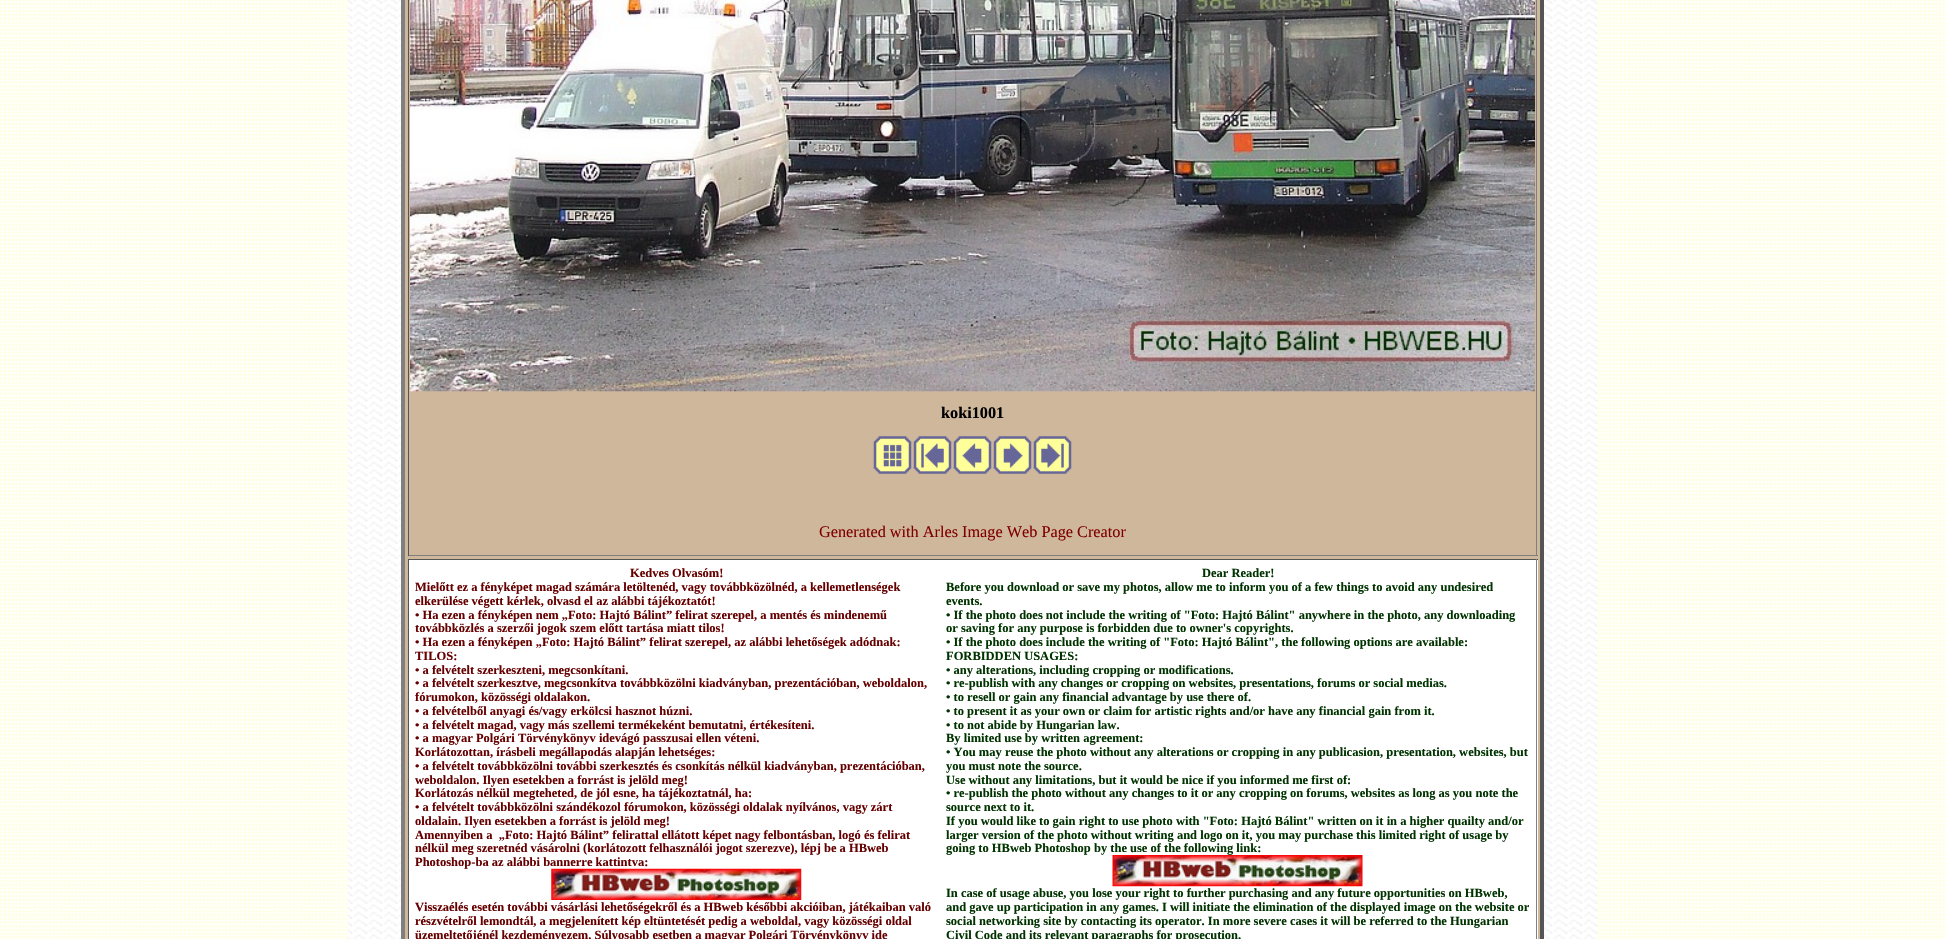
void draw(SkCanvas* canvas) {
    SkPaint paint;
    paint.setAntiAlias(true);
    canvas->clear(0xFFFFFFFF);
    canvas->drawImageRect(SkImages::DeferredFromEncodedData(SkData::MakeFromFileName("img1.png")), SkRect::MakeXYWH(0, 0, 1945, 939), SkSamplingOptions());
    canvas->drawImageRect(SkImages::DeferredFromEncodedData(SkData::MakeFromFileName("img2.png")), SkRect::MakeXYWH(347, 0, 1251, 939), SkSamplingOptions());
    paint.setColor(0xFFCFB79C);
    canvas->drawRect(SkRect::MakeXYWH(405, 0, 1135, 939), paint);
    paint.setColor(0xFF555555);
    canvas->drawPath(SkPathBuilder().moveTo(1544, -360).lineTo(1544, 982).lineTo(1540, 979).lineTo(1540, -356).close().detach(), paint);
    paint.setColor(0xFF808080);
    canvas->drawPath(SkPathBuilder().moveTo(401, 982).lineTo(401, -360).lineTo(405, -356).lineTo(405, 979).close().detach(), paint);
    canvas->drawRect(SkRect::MakeXYWH(1536, 0, 1, 556), paint);
    canvas->drawRect(SkRect::MakeXYWH(408, 555, 1130, 1), paint);
    paint.setColor(0xFF555555);
    canvas->drawRect(SkRect::MakeXYWH(408, 0, 1, 556), paint);
    canvas->drawImageRect(SkImages::DeferredFromEncodedData(SkData::MakeFromFileName("img3.png")), SkRect::MakeXYWH(410, 0, 1125, 392), SkSamplingOptions());
    SkFont font1(fontMgr->matchFamilyStyle("Liberation Serif", SkFontStyle::Bold()), 16.25f);
    font1.setSubpixel(true);
    paint.setColor(0xFF000000);
    canvas->drawString("koki1001", 941, 418, font1, paint);
    canvas->drawImageRect(SkImages::DeferredFromEncodedData(SkData::MakeFromFileName("img4.png")), SkRect::MakeXYWH(873, 436, 39, 38), SkSamplingOptions());
    canvas->drawImageRect(SkImages::DeferredFromEncodedData(SkData::MakeFromFileName("img5.png")), SkRect::MakeXYWH(913, 436, 39, 38), SkSamplingOptions());
    canvas->drawImageRect(SkImages::DeferredFromEncodedData(SkData::MakeFromFileName("img6.png")), SkRect::MakeXYWH(953, 436, 39, 38), SkSamplingOptions());
    canvas->drawImageRect(SkImages::DeferredFromEncodedData(SkData::MakeFromFileName("img7.png")), SkRect::MakeXYWH(993, 436, 39, 38), SkSamplingOptions());
    canvas->drawImageRect(SkImages::DeferredFromEncodedData(SkData::MakeFromFileName("img8.png")), SkRect::MakeXYWH(1033, 436, 39, 38), SkSamplingOptions());
    SkFont font2(fontMgr->matchFamilyStyle("Liberation Serif", SkFontStyle::Normal()), 16.25f);
    font2.setSubpixel(true);
    paint.setColor(0xFF800000);
    canvas->drawString("Generated with Arles Image Web Page Creator", 819, 537, font2, paint);
    paint.setColor(0xFFFFFFFF);
    canvas->drawRect(SkRect::MakeXYWH(409, 560, 1129, 379), paint);
    paint.setColor(0xFF555555);
    canvas->drawRect(SkRect::MakeXYWH(408, 559, 1130, 1), paint);
    paint.setColor(0xFF808080);
    canvas->drawRect(SkRect::MakeXYWH(1536, 559, 1, 380), paint);
    paint.setColor(0xFF555555);
    canvas->drawRect(SkRect::MakeXYWH(408, 559, 1, 380), paint);
    SkFont font3(fontMgr->matchFamilyStyle("Liberation Serif", SkFontStyle::Bold()), 12.5f);
    font3.setSubpixel(true);
    paint.setColor(0xFF660000);
    canvas->drawString("Kedves Olvasóm!", 630, 577, font3, paint);
    canvas->drawString("Mielőtt ez a fényképet magad számára letöltenéd, vagy továbbközölnéd, a kellemetlenségek", 415, 591, font3, paint);
    canvas->drawString("elkerülése végett kérlek, olvasd el az alábbi tájékoztatót!", 415, 605, font3, paint);
    canvas->drawString("• Ha ezen a fényképen nem „Foto: Hajtó Bálint” felirat szerepel, a mentés és mindenemű", 415, 619, font3, paint);
    canvas->drawString("továbbközlés a szerzői jogok szem előtt tartása miatt tilos!", 415, 632, font3, paint);
    canvas->drawString("• Ha ezen a fényképen „Foto: Hajtó Bálint” felirat szerepel, az alábbi lehetőségek adódnak:", 415, 646, font3, paint);
    canvas->drawString("TILOS:", 415, 660, font3, paint);
    canvas->drawString("• a felvételt szerkeszteni, megcsonkítani.", 415, 674, font3, paint);
    canvas->drawString("• a felvételt szerkesztve, megcsonkítva továbbközölni kiadványban, prezentációban, weboldalon,", 415, 687, font3, paint);
    canvas->drawString("fórumokon, közösségi oldalakon.", 415, 701, font3, paint);
    canvas->drawString("• a felvételből anyagi és/vagy erkölcsi hasznot húzni.", 415, 715, font3, paint);
    canvas->drawString("• a felvételt magad, vagy más szellemi termékeként bemutatni, értékesíteni.", 415, 729, font3, paint);
    canvas->drawString("• a magyar Polgári Törvénykönyv idevágó passzusai ellen véteni.", 415, 742, font3, paint);
    canvas->drawString("Korlátozottan, írásbeli megállapodás alapján lehetséges:", 415, 756, font3, paint);
    canvas->drawString("• a felvételt továbbközölni további szerkesztés és csonkítás nélkül kiadványban, prezentációban,", 415, 770, font3, paint);
    canvas->drawString("weboldalon. Ilyen esetekben a forrást is jelöld meg!", 415, 784, font3, paint);
    canvas->drawString("Korlátozás nélkül megteheted, de jól esne, ha tájékoztatnál, ha:", 415, 797, font3, paint);
    canvas->drawString("• a felvételt továbbközölni szándékozol fórumokon, közösségi oldalak nyílvános, vagy zárt", 415, 811, font3, paint);
    canvas->drawString("oldalain. Ilyen esetekben a forrást is jelöld meg!", 415, 825, font3, paint);
    canvas->drawString("Amennyiben a  „Foto: Hajtó Bálint” felirattal ellátott képet nagy felbontásban, logó és felirat", 415, 839, font3, paint);
    canvas->drawString("nélkül meg szeretnéd vásárolni (korlátozott felhasználói jogot szerezve), lépj be a HBweb", 415, 852, font3, paint);
    canvas->drawString("Photoshop-ba az alábbi bannerre kattintva:", 415, 866, font3, paint);
    canvas->drawImageRect(SkImages::DeferredFromEncodedData(SkData::MakeFromFileName("img9.png")), SkRect::MakeXYWH(551, 868, 251, 32), SkSamplingOptions());
    canvas->drawString("Visszaélés esetén további vásárlási lehetőségekről és a HBweb későbbi akcióiban, játékaiban való", 415, 911, font3, paint);
    canvas->drawString("részvételről lemondtál, a megjelenített kép eltüntetését pedig a weboldal, vagy közösségi oldal", 415, 925, font3, paint);
    canvas->drawString("üzemeltetőjénél kezdeményezem. Súlyosabb esetben a magyar Polgári Törvénykönyv ide", 415, 939, font3, paint);
    paint.setColor(0xFF003300);
    canvas->drawString("Dear Reader!", 1202, 577, font3, paint);
    canvas->drawString("Before you download or save my photos, allow me to inform you of a few things to avoid any undesired", 946, 591, font3, paint);
    canvas->drawString("events.", 946, 605, font3, paint);
    canvas->drawString("• If the photo does not include the writing of \"Foto: Hajtó Bálint\" anywhere in the photo, any downloading", 946, 619, font3, paint);
    canvas->drawString("or saving for any purpose is forbidden due to owner's copyrights.", 946, 632, font3, paint);
    canvas->drawString("• If the photo does include the writing of \"Foto: Hajtó Bálint\", the following options are available:", 946, 646, font3, paint);
    canvas->drawString("FORBIDDEN USAGES:", 946, 660, font3, paint);
    canvas->drawString("• any alterations, including cropping or modifications.", 946, 674, font3, paint);
    canvas->drawString("• re-publish with any changes or cropping on websites, presentations, forums or social medias.", 946, 687, font3, paint);
    canvas->drawString("• to resell or gain any financial advantage by use there of.", 946, 701, font3, paint);
    canvas->drawString("• to present it as your own or claim for artistic rights and/or have any financial gain from it.", 946, 715, font3, paint);
    canvas->drawString("• to not abide by Hungarian law.", 946, 729, font3, paint);
    canvas->drawString("By limited use by written agreement:", 946, 742, font3, paint);
    canvas->drawString("• You may reuse the photo without any alterations or cropping in any publicasion, presentation, websites, but", 946, 756, font3, paint);
    canvas->drawString("you must note the source.", 946, 770, font3, paint);
    canvas->drawString("Use without any limitations, but it would be nice if you informed me first of:", 946, 784, font3, paint);
    canvas->drawString("• re-publish the photo without any changes to it or any cropping on forums, websites as long as you note the", 946, 797, font3, paint);
    canvas->drawString("source next to it.", 946, 811, font3, paint);
    canvas->drawString("If you would like to gain right to use photo with \"Foto: Hajtó Bálint\" written on it in a higher quailty and/or", 946, 825, font3, paint);
    canvas->drawString("larger version of the photo without writing and logo on it, you may purchase this limited right of usage by", 946, 839, font3, paint);
    canvas->drawString("going to HBweb Photoshop by the use of the following link:", 946, 852, font3, paint);
    canvas->drawImageRect(SkImages::DeferredFromEncodedData(SkData::MakeFromFileName("img10.png")), SkRect::MakeXYWH(1112, 855, 251, 32), SkSamplingOptions());
    canvas->drawString("In case of usage abuse, you lose your right to further purchasing and any future opportunities on HBweb,", 946, 897, font3, paint);
    canvas->drawString("and gave up participation in any games. I will initiate the elimination of the displayed image on the website or", 946, 911, font3, paint);
    canvas->drawString("social networking site by contacting its operator. In more severe cases it will be referred to the Hungarian", 946, 925, font3, paint);
    canvas->drawString("Civil Code and its relevant paragraphs for prosecution.", 946, 939, font3, paint);
}
